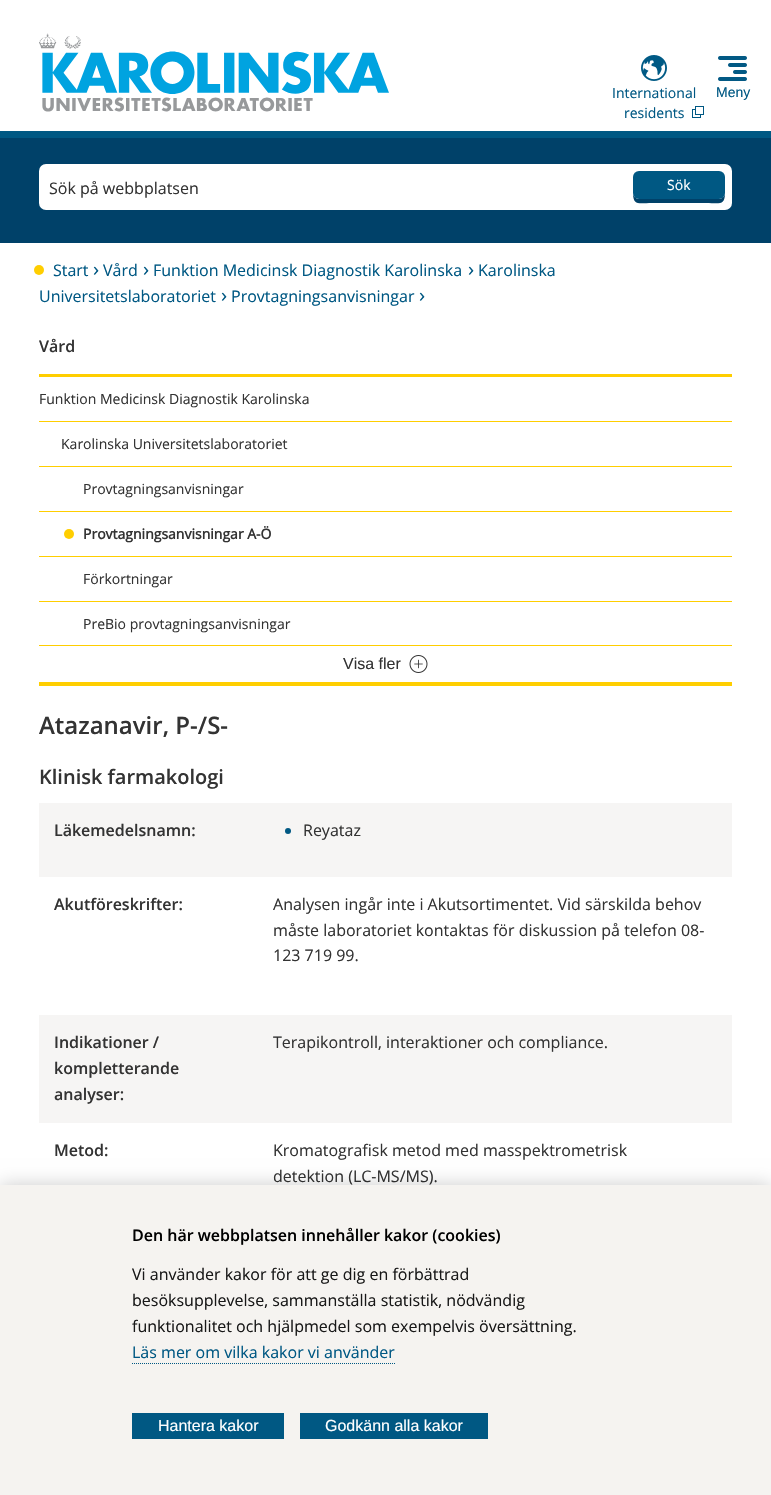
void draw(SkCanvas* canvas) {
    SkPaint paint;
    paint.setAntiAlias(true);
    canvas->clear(0xFFFFFFFF);
    paint.setColor(0xFF005883);
    canvas->drawRect(SkRect::MakeXYWH(0, 131, 771, 7), paint);
    canvas->drawImageRect(SkImages::DeferredFromEncodedData(SkData::MakeFromFileName("img1.png")), SkRect::MakeXYWH(39, 33, 350, 79), SkSamplingOptions());
    canvas->drawImageRect(SkImages::DeferredFromEncodedData(SkData::MakeFromFileName("img2.png")), SkRect::MakeXYWH(641, 55, 26, 26), SkSamplingOptions());
    SkFont font1(fontMgr->matchFamilyStyle("Open Sans", SkFontStyle::Normal()), 14);
    font1.setSubpixel(true);
    canvas->drawString("International", 612, 98, font1, paint);
    canvas->drawString("residents", 624, 118, font1, paint);
    canvas->drawImageRect(SkImages::DeferredFromEncodedData(SkData::MakeFromFileName("img3.png")), SkRect::MakeXYWH(692, 106, 12, 12), SkSamplingOptions());
    canvas->drawImageRect(SkImages::DeferredFromEncodedData(SkData::MakeFromFileName("img4.png")), SkRect::MakeXYWH(718, 56, 29, 25), SkSamplingOptions());
    SkFont font2(fontMgr->matchFamilyStyle("Liberation Sans", SkFontStyle::Normal()), 14);
    font2.setSubpixel(true);
    canvas->drawString("Meny", 716, 97, font2, paint);
    paint.setColor(0xFF004169);
    canvas->drawRect(SkRect::MakeXYWH(0, 138, 771, 105), paint);
    paint.setColor(0xFFFFFFFF);
    canvas->drawRoundRect(SkRect::MakeXYWH(39, 164, 693, 46), 7, 7, paint);
    SkFont font3(fontMgr->matchFamilyStyle("Open Sans", SkFontStyle::Normal()), 16);
    font3.setSubpixel(true);
    paint.setColor(0xFF333333);
    canvas->drawString("Sök på webbplatsen", 49, 194, font3, paint);
    paint.setColor(0xFF004169);
    canvas->drawPath(SkPathBuilder().moveTo(633, 193).cubicTo(633, 206, 639, 203, 652, 203).lineTo(706, 203).cubicTo(719, 203, 725, 206, 725, 193).cubicTo(725, 196, 722, 199, 719, 199).lineTo(639, 199).cubicTo(636, 199, 633, 196, 633, 193).close().detach(), paint);
    paint.setColor(0xFF005883);
    canvas->drawRoundRect(SkRect::MakeXYWH(633, 171, 92, 28), 6, 6, paint);
    paint.setColor(0xFFFFFFFF);
    canvas->drawString("Sök", 667, 190, font1, paint);
    paint.setColor(0xFFFFCE00);
    canvas->drawCircle(39, 270, 5, paint);
    paint.setColor(0xFF005883);
    canvas->drawString("Start", 53, 276, font3, paint);
    SkFont font4(fontMgr->matchFamilyStyle("Open Sans", SkFontStyle::Normal()), 20);
    font4.setSubpixel(true);
    canvas->drawString("›", 93, 276, font4, paint);
    canvas->drawString("Vård", 103, 276, font3, paint);
    canvas->drawString("›", 143, 276, font4, paint);
    canvas->drawString("Funktion Medicinsk Diagnostik Karolinska", 153, 276, font3, paint);
    canvas->drawString("›", 468, 276, font4, paint);
    canvas->drawString("Karolinska", 478, 276, font3, paint);
    canvas->drawString("Universitetslaboratoriet", 39, 302, font3, paint);
    canvas->drawString("›", 221, 302, font4, paint);
    canvas->drawString("Provtagningsanvisningar", 231, 302, font3, paint);
    canvas->drawString("›", 419, 302, font4, paint);
    paint.setColor(0xFFFFCE00);
    canvas->drawRect(SkRect::MakeXYWH(39, 374, 693, 3), paint);
    SkFont font5(fontMgr->matchFamilyStyle("Open Sans", SkFontStyle(600, SkFontStyle::kNormal_Width, SkFontStyle::kUpright_Slant)), 16);
    font5.setSubpixel(true);
    paint.setColor(0xFF333333);
    canvas->drawString("Vård", 39, 352, font5, paint);
    paint.setColor(0xFFFFCE00);
    canvas->drawRect(SkRect::MakeXYWH(39, 421, 693, 1), paint);
    paint.setColor(0xFF333333);
    canvas->drawString("Funktion Medicinsk Diagnostik Karolinska", 39, 404, font1, paint);
    paint.setColor(0xFFFFCE00);
    canvas->drawRect(SkRect::MakeXYWH(39, 466, 693, 1), paint);
    paint.setColor(0xFF333333);
    canvas->drawString("Karolinska Universitetslaboratoriet", 61, 449, font1, paint);
    paint.setColor(0xFFFFCE00);
    canvas->drawRect(SkRect::MakeXYWH(39, 511, 693, 1), paint);
    paint.setColor(0xFF333333);
    canvas->drawString("Provtagningsanvisningar", 83, 494, font1, paint);
    paint.setColor(0xFFFFCE00);
    canvas->drawRect(SkRect::MakeXYWH(39, 556, 693, 1), paint);
    canvas->drawCircle(69, 534, 5, paint);
    SkFont font6(fontMgr->matchFamilyStyle("Open Sans", SkFontStyle::Bold()), 14);
    font6.setSubpixel(true);
    paint.setColor(0xFF333333);
    canvas->drawString("Provtagningsanvisningar A-Ö", 83, 539, font6, paint);
    paint.setColor(0xFFFFCE00);
    canvas->drawRect(SkRect::MakeXYWH(39, 601, 693, 1), paint);
    paint.setColor(0xFF333333);
    canvas->drawString("Förkortningar", 83, 584, font1, paint);
    paint.setColor(0xFFFFCE00);
    canvas->drawRect(SkRect::MakeXYWH(39, 645, 693, 1), paint);
    paint.setColor(0xFF333333);
    canvas->drawString("PreBio provtagningsanvisningar", 83, 629, font1, paint);
    paint.setColor(0xFFFFCE00);
    canvas->drawRect(SkRect::MakeXYWH(39, 682, 693, 4), paint);
    SkFont font7(fontMgr->matchFamilyStyle("Liberation Sans", SkFontStyle::Normal()), 16);
    font7.setSubpixel(true);
    paint.setColor(0xFF333333);
    canvas->drawString("Visa fler", 343, 669, font7, paint);
    canvas->drawImageRect(SkImages::DeferredFromEncodedData(SkData::MakeFromFileName("img5.png")), SkRect::MakeXYWH(409, 655, 19, 18), SkSamplingOptions());
    SkFont font8(fontMgr->matchFamilyStyle("Open Sans", SkFontStyle(600, SkFontStyle::kNormal_Width, SkFontStyle::kUpright_Slant)), 24);
    font8.setSubpixel(true);
    canvas->drawString("Atazanavir, P-/S-", 39, 734, font8, paint);
    SkFont font9(fontMgr->matchFamilyStyle("Open Sans", SkFontStyle(600, SkFontStyle::kNormal_Width, SkFontStyle::kUpright_Slant)), 20);
    font9.setSubpixel(true);
    canvas->drawString("Klinisk farmakologi", 39, 784, font9, paint);
    paint.setColor(0xFFF6F5F4);
    canvas->drawRect(SkRect::MakeXYWH(39, 803, 693, 74), paint);
    paint.setColor(0xFF333333);
    canvas->drawString("Läkemedelsnamn:", 54, 836, font5, paint);
    paint.setColor(0xFF005883);
    canvas->drawCircle(288, 831, 3, paint);
    paint.setColor(0xFF333333);
    canvas->drawString("Reyataz", 303, 836, font3, paint);
    canvas->drawString("Akutföreskrifter:", 54, 910, font5, paint);
    canvas->drawString("Analysen ingår inte i Akutsortimentet. Vid särskilda behov", 273, 910, font3, paint);
    canvas->drawString("måste laboratoriet kontaktas för diskussion på telefon 08-", 273, 936, font3, paint);
    canvas->drawString("123 719 99.", 273, 961, font3, paint);
    paint.setColor(0xFFF6F5F4);
    canvas->drawRect(SkRect::MakeXYWH(39, 1015, 693, 108), paint);
    paint.setColor(0xFF333333);
    canvas->drawString("Indikationer /", 54, 1048, font5, paint);
    canvas->drawString("kompletterande", 54, 1074, font5, paint);
    canvas->drawString("analyser:", 54, 1100, font5, paint);
    canvas->drawString("Terapikontroll, interaktioner och compliance.", 273, 1048, font3, paint);
    canvas->drawString("Metod:", 54, 1156, font5, paint);
    canvas->drawString("Kromatografisk metod med masspektrometrisk", 273, 1156, font3, paint);
    canvas->drawString("detektion (LC-MS/MS).", 273, 1182, font3, paint);
    paint.setColor(0x33000000);
    paint.setMaskFilter(SkMaskFilter::MakeBlur(kNormal_SkBlurStyle, 9));
    canvas->drawRect(SkRect::MakeXYWH(0, 1185, 771, 310), paint);
    paint.setMaskFilter(nullptr);
    paint.setColor(0xFFF5F3F0);
    canvas->drawRect(SkRect::MakeXYWH(0, 1185, 771, 310), paint);
    paint.setColor(0xFF000000);
    canvas->drawString("Den här webbplatsen innehåller kakor (cookies)", 132, 1241, font5, paint);
    paint.setColor(0xFF181818);
    canvas->drawString("Vi använder kakor för att ge dig en förbättrad", 132, 1280, font3, paint);
    canvas->drawString("besöksupplevelse, sammanställa statistik, nödvändig", 132, 1306, font3, paint);
    canvas->drawString("funktionalitet och hjälpmedel som exempelvis översättning.", 132, 1332, font3, paint);
    paint.setColor(0xFF005883);
    canvas->drawString("Läs mer om vilka kakor vi använder", 132, 1358, font3, paint);
    paint.setStyle(SkPaint::kStroke_Style);
    paint.setStrokeWidth(1);
    paint.setPathEffect(SkDashPathEffect::Make({{1, 1}}, 0));
    canvas->drawPath(SkPathBuilder().moveTo(132, 1363.5f).lineTo(395, 1363.5f).detach(), paint);
    paint.setPathEffect(nullptr);
    paint.setStyle(SkPaint::kFill_Style);
    canvas->drawRect(SkRect::MakeXYWH(132, 1413, 152, 26), paint);
    paint.setColor(0xFFFFFFFF);
    canvas->drawString("Hantera kakor", 158, 1431, font7, paint);
    paint.setColor(0xFF005883);
    canvas->drawRect(SkRect::MakeXYWH(300, 1413, 188, 26), paint);
    paint.setColor(0xFFFFFFFF);
    canvas->drawString("Godkänn alla kakor", 325, 1431, font7, paint);
}
